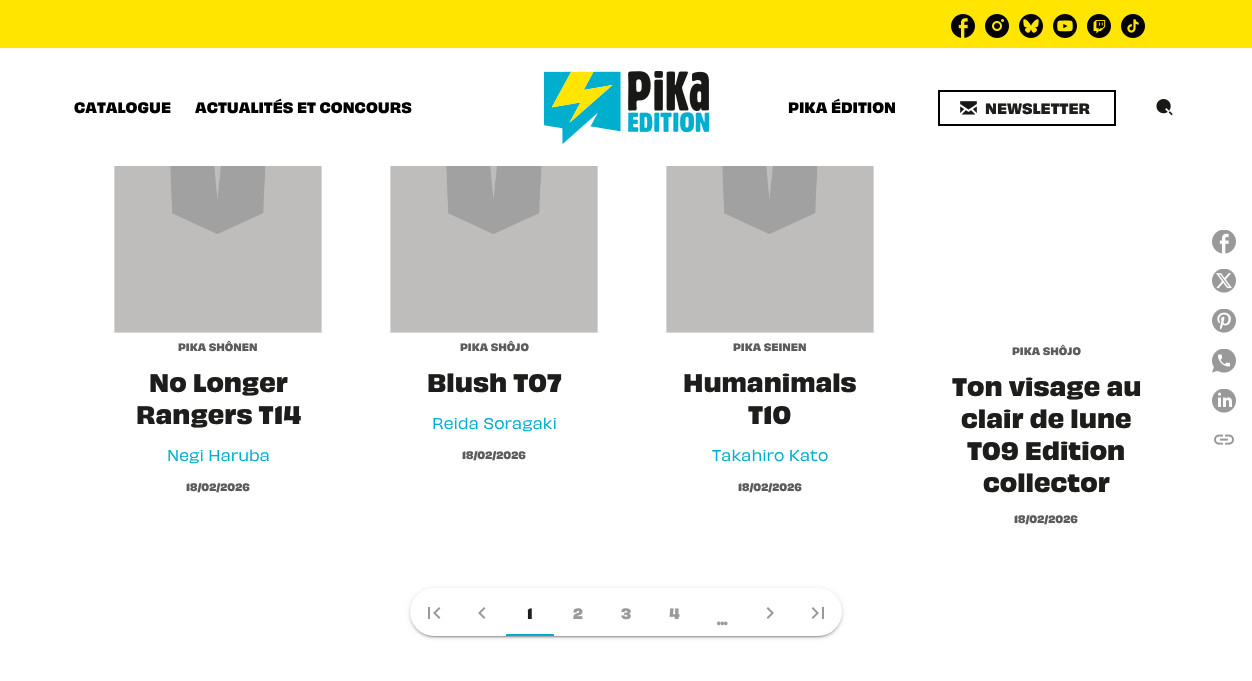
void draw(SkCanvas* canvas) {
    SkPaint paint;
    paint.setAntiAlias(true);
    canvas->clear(0xFFFFFFFF);
    paint.setStyle(SkPaint::kStroke_Style);
    paint.setStrokeWidth(1);
    paint.setColor(0xFFD8D8D8);
    canvas->drawRect(SkRect::MakeXYWH(114.5f, 40.5f, 207, 292), paint);
    canvas->drawRect(SkRect::MakeXYWH(390.5f, 40.5f, 207, 292), paint);
    canvas->drawRect(SkRect::MakeXYWH(666.5f, 40.5f, 207, 292), paint);
    paint.setStyle(SkPaint::kFill_Style);
    paint.setColor(0xFFFFFFFF);
    canvas->drawRect(SkRect::MakeXYWH(114, 48, 760, 118), paint);
    SkFont font1(fontMgr->matchFamilyStyle("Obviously", SkFontStyle::Bold()), 14);
    font1.setSubpixel(true);
    paint.setColor(0xFF000000);
    canvas->drawString("CATALOGUE", 74, 113, font1, paint);
    canvas->drawString("ACTUALITÉS ET CONCOURS", 195, 113, font1, paint);
    canvas->drawString("PIKA ÉDITION", 788, 113, font1, paint);
    paint.setColor(0xFFFFE500);
    canvas->drawRect(SkRect::MakeXYWH(0, 0, 1252, 48), paint);
    canvas->drawImageRect(SkImages::DeferredFromEncodedData(SkData::MakeFromFileName("img1.png")), SkRect::MakeXYWH(544, 71, 165, 73), SkSamplingOptions());
    canvas->drawImageRect(SkImages::DeferredFromEncodedData(SkData::MakeFromFileName("img2.png")), SkRect::MakeXYWH(951, 14, 24, 24), SkSamplingOptions());
    canvas->drawImageRect(SkImages::DeferredFromEncodedData(SkData::MakeFromFileName("img3.png")), SkRect::MakeXYWH(985, 14, 24, 24), SkSamplingOptions());
    canvas->drawImageRect(SkImages::DeferredFromEncodedData(SkData::MakeFromFileName("img4.png")), SkRect::MakeXYWH(1019, 14, 24, 24), SkSamplingOptions());
    canvas->drawImageRect(SkImages::DeferredFromEncodedData(SkData::MakeFromFileName("img5.png")), SkRect::MakeXYWH(1053, 14, 24, 24), SkSamplingOptions());
    canvas->drawImageRect(SkImages::DeferredFromEncodedData(SkData::MakeFromFileName("img6.png")), SkRect::MakeXYWH(1087, 14, 24, 24), SkSamplingOptions());
    canvas->drawImageRect(SkImages::DeferredFromEncodedData(SkData::MakeFromFileName("img7.png")), SkRect::MakeXYWH(1121, 14, 24, 24), SkSamplingOptions());
    paint.setStyle(SkPaint::kStroke_Style);
    paint.setStrokeWidth(2);
    paint.setColor(0xFF000000);
    canvas->drawRect(SkRect::MakeXYWH(939, 91, 176, 34), paint);
    canvas->drawImageRect(SkImages::DeferredFromEncodedData(SkData::MakeFromFileName("img8.png")), SkRect::MakeXYWH(960, 101, 17, 14), SkSamplingOptions());
    paint.setStyle(SkPaint::kFill_Style);
    paint.setColor(0xFF1D1D1B);
    canvas->drawString("NEWSLETTER", 985, 114, font1, paint);
    canvas->drawImageRect(SkImages::DeferredFromEncodedData(SkData::MakeFromFileName("img9.png")), SkRect::MakeXYWH(1156, 99, 17, 17), SkSamplingOptions());
    canvas->drawImageRect(SkImages::DeferredFromEncodedData(SkData::MakeFromFileName("img10.png")), SkRect::MakeXYWH(115, 166, 206, 166), SkSamplingOptions());
    SkFont font2(fontMgr->matchFamilyStyle("Obviously", SkFontStyle::Bold()), 10);
    font2.setSubpixel(true);
    paint.setColor(0xFF5C5C5C);
    canvas->drawString("PIKA SHÔNEN", 178, 351, font2, paint);
    SkFont font3(fontMgr->matchFamilyStyle("Obviously", SkFontStyle::Bold()), 23.75f);
    font3.setSubpixel(true);
    paint.setColor(0xFF1D1D1B);
    canvas->drawString("No Longer", 149, 392, font3, paint);
    canvas->drawString("Rangers T14", 136, 424, font3, paint);
    SkFont font4(fontMgr->matchFamilyStyle("Obviously", SkFontStyle(600, SkFontStyle::kNormal_Width, SkFontStyle::kUpright_Slant)), 14.5f);
    font4.setSubpixel(true);
    paint.setColor(0xFF00AFCE);
    canvas->drawString("Negi Haruba", 167, 461, font4, paint);
    paint.setColor(0xFF5C5C5C);
    canvas->drawString("18/02/2026", 186, 491, font2, paint);
    canvas->drawImageRect(SkImages::DeferredFromEncodedData(SkData::MakeFromFileName("img10.png")), SkRect::MakeXYWH(391, 166, 206, 166), SkSamplingOptions());
    canvas->drawString("PIKA SHÔJO", 460, 351, font2, paint);
    paint.setColor(0xFF1D1D1B);
    canvas->drawString("Blush T07", 427, 392, font3, paint);
    paint.setColor(0xFF00AFCE);
    canvas->drawString("Reida Soragaki", 432, 429, font4, paint);
    paint.setColor(0xFF5C5C5C);
    canvas->drawString("18/02/2026", 462, 459, font2, paint);
    canvas->drawImageRect(SkImages::DeferredFromEncodedData(SkData::MakeFromFileName("img10.png")), SkRect::MakeXYWH(667, 166, 206, 166), SkSamplingOptions());
    canvas->drawString("PIKA SEINEN", 733, 351, font2, paint);
    paint.setColor(0xFF1D1D1B);
    canvas->drawString("Humanimals", 683, 392, font3, paint);
    canvas->drawString("T10", 748, 424, font3, paint);
    paint.setColor(0xFF00AFCE);
    canvas->drawString("Takahiro Kato", 712, 461, font4, paint);
    paint.setColor(0xFF5C5C5C);
    canvas->drawString("18/02/2026", 738, 491, font2, paint);
    canvas->drawString("PIKA SHÔJO", 1012, 355, font2, paint);
    paint.setColor(0xFF1D1D1B);
    canvas->drawString("Ton visage au", 952, 396, font3, paint);
    canvas->drawString("clair de lune", 961, 428, font3, paint);
    canvas->drawString("T09 Edition", 967, 460, font3, paint);
    canvas->drawString("collector", 983, 492, font3, paint);
    paint.setColor(0xFF5C5C5C);
    canvas->drawString("18/02/2026", 1014, 523, font2, paint);
    paint.setColor(0x1F000000);
    paint.setMaskFilter(SkMaskFilter::MakeBlur(kNormal_SkBlurStyle, 2.5f));
    canvas->drawRoundRect(SkRect::MakeXYWH(410, 589, 432, 48), 24, 24, paint);
    paint.setMaskFilter(nullptr);
    paint.setColor(0x24000000);
    paint.setMaskFilter(SkMaskFilter::MakeBlur(kNormal_SkBlurStyle, 1));
    canvas->drawRoundRect(SkRect::MakeXYWH(410, 590, 432, 48), 24, 24, paint);
    paint.setMaskFilter(nullptr);
    paint.setColor(0x33000000);
    paint.setMaskFilter(SkMaskFilter::MakeBlur(kNormal_SkBlurStyle, 0.5f));
    canvas->drawRoundRect(SkRect::MakeXYWH(412, 593, 428, 44), 22, 22, paint);
    paint.setMaskFilter(nullptr);
    paint.setColor(0xFFFFFFFF);
    canvas->drawRoundRect(SkRect::MakeXYWH(410, 588, 432, 48), 24, 24, paint);
    canvas->drawImageRect(SkImages::DeferredFromEncodedData(SkData::MakeFromFileName("img11.png")), SkRect::MakeXYWH(428, 607, 13, 12), SkSamplingOptions());
    canvas->drawImageRect(SkImages::DeferredFromEncodedData(SkData::MakeFromFileName("img12.png")), SkRect::MakeXYWH(478, 607, 8, 12), SkSamplingOptions());
    paint.setColor(0xFF00AFCE);
    canvas->drawRect(SkRect::MakeXYWH(506, 634, 48, 2), paint);
    paint.setColor(0xFF1D1D1B);
    canvas->drawString("1", 527, 619, font1, paint);
    paint.setColor(0xFF999999);
    canvas->drawString("2", 573, 619, font1, paint);
    canvas->drawString("3", 621, 619, font1, paint);
    canvas->drawString("4", 669, 619, font1, paint);
    canvas->drawImageRect(SkImages::DeferredFromEncodedData(SkData::MakeFromFileName("img13.png")), SkRect::MakeXYWH(766, 607, 8, 12), SkSamplingOptions());
    canvas->drawImageRect(SkImages::DeferredFromEncodedData(SkData::MakeFromFileName("img14.png")), SkRect::MakeXYWH(811, 607, 13, 12), SkSamplingOptions());
    canvas->drawString("...", 717, 625, font1, paint);
    canvas->drawImageRect(SkImages::DeferredFromEncodedData(SkData::MakeFromFileName("img15.png")), SkRect::MakeXYWH(1212, 230, 24, 24), SkSamplingOptions());
    canvas->drawImageRect(SkImages::DeferredFromEncodedData(SkData::MakeFromFileName("img16.png")), SkRect::MakeXYWH(1212, 269, 24, 24), SkSamplingOptions());
    canvas->drawImageRect(SkImages::DeferredFromEncodedData(SkData::MakeFromFileName("img17.png")), SkRect::MakeXYWH(1212, 309, 24, 24), SkSamplingOptions());
    canvas->drawImageRect(SkImages::DeferredFromEncodedData(SkData::MakeFromFileName("img18.png")), SkRect::MakeXYWH(1212, 349, 24, 24), SkSamplingOptions());
    canvas->drawImageRect(SkImages::DeferredFromEncodedData(SkData::MakeFromFileName("img19.png")), SkRect::MakeXYWH(1212, 389, 24, 24), SkSamplingOptions());
    canvas->drawImageRect(SkImages::DeferredFromEncodedData(SkData::MakeFromFileName("img20.png")), SkRect::MakeXYWH(1214, 434, 20, 11), SkSamplingOptions());
}
